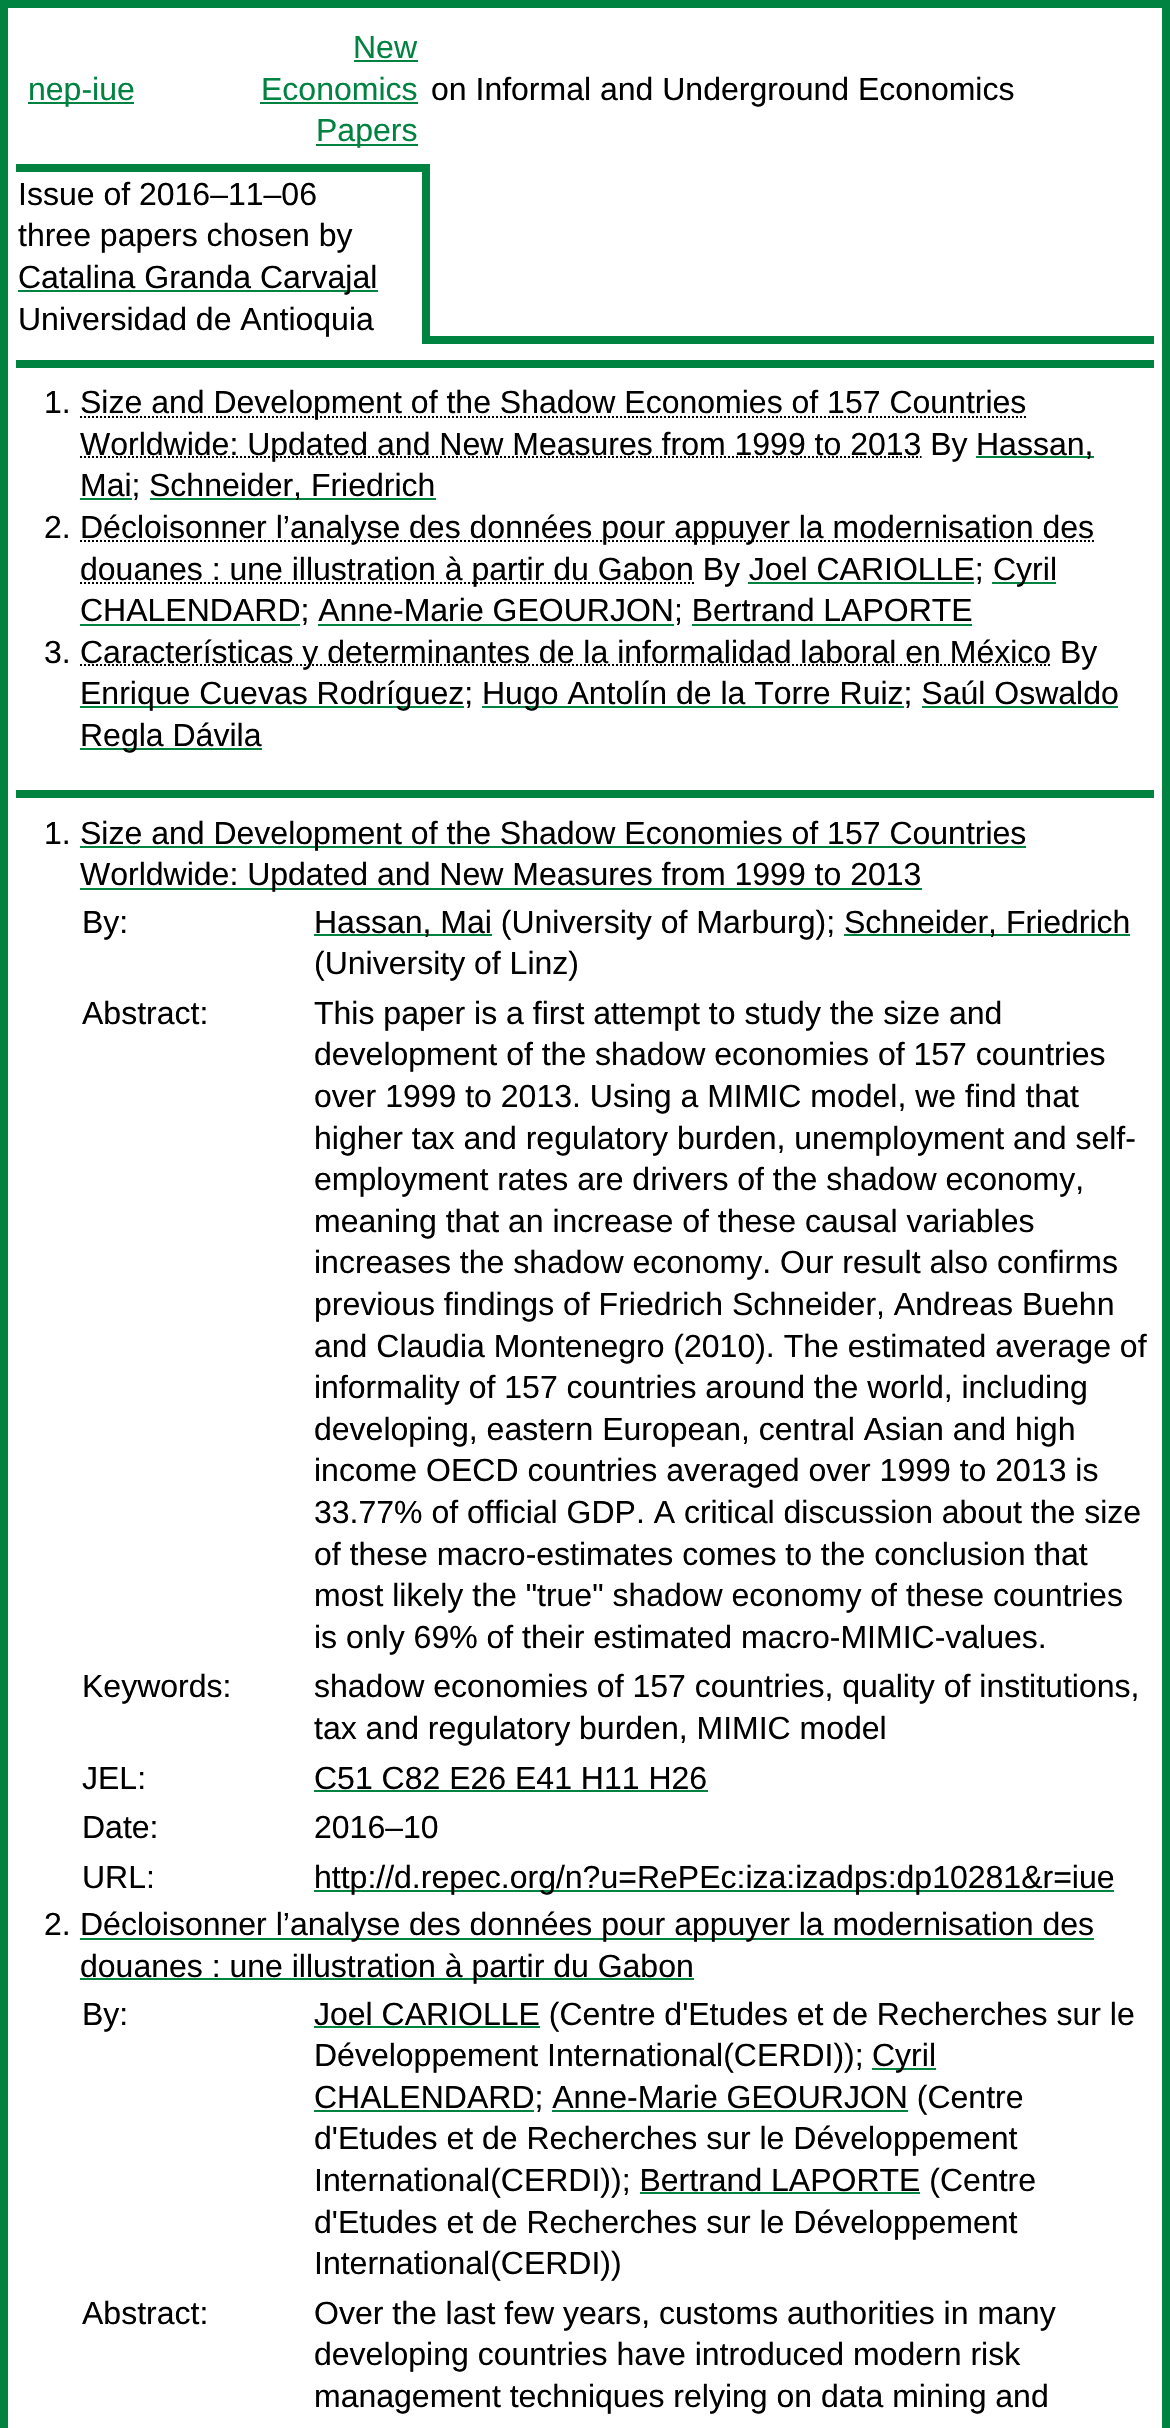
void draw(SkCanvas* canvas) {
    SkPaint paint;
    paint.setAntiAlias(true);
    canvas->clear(0xFFFFFFFF);
    paint.setStyle(SkPaint::kStroke_Style);
    paint.setStrokeWidth(8);
    paint.setColor(0xFF008241);
    canvas->drawRect(SkRect::MakeXYWH(4, 4, 1162, 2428), paint);
    paint.setStyle(SkPaint::kFill_Style);
    canvas->drawRect(SkRect::MakeXYWH(28, 102, 106, 2), paint);
    SkFont font1(fontMgr->matchFamilyStyle("Liberation Sans", SkFontStyle::Normal()), 32);
    font1.setSubpixel(true);
    canvas->drawString("nep-iue", 28, 100, font1, paint);
    canvas->drawString("New", 353, 58, font1, paint);
    canvas->drawRect(SkRect::MakeXYWH(354, 60, 64, 2), paint);
    canvas->drawString("Economics", 261, 100, font1, paint);
    canvas->drawRect(SkRect::MakeXYWH(260, 102, 158, 2), paint);
    canvas->drawRect(SkRect::MakeXYWH(316, 144, 102, 2), paint);
    canvas->drawString("Papers", 316, 141, font1, paint);
    paint.setColor(0xFF000000);
    canvas->drawString("on Informal and Underground Economics", 431, 100, font1, paint);
    paint.setColor(0xFF008241);
    canvas->drawRect(SkRect::MakeXYWH(16, 164, 410, 8), paint);
    canvas->drawRect(SkRect::MakeXYWH(422, 164, 4, 180), paint);
    paint.setColor(0xFF000000);
    canvas->drawString("Issue of 2016‒11‒06", 18, 205, font1, paint);
    canvas->drawString("three papers chosen by", 18, 246, font1, paint);
    paint.setColor(0xFF008241);
    canvas->drawRect(SkRect::MakeXYWH(18, 290, 360, 2), paint);
    paint.setColor(0xFF000000);
    canvas->drawString("Catalina Granda Carvajal", 18, 288, font1, paint);
    canvas->drawString("Universidad de Antioquia", 18, 330, font1, paint);
    paint.setColor(0xFF008241);
    canvas->drawRect(SkRect::MakeXYWH(426, 336, 728, 8), paint);
    canvas->drawRect(SkRect::MakeXYWH(426, 164, 4, 180), paint);
    canvas->drawRect(SkRect::MakeXYWH(16, 360, 1138, 8), paint);
    paint.setColor(0xFF000000);
    canvas->drawString("1.", 44, 413, font1, paint);
    paint.setStyle(SkPaint::kStroke_Style);
    paint.setStrokeWidth(2);
    paint.setPathEffect(SkDashPathEffect::Make({{2, 2}}, 0));
    canvas->drawPath(SkPathBuilder().moveTo(80, 417).lineTo(1026.5f, 417).detach(), paint);
    paint.setPathEffect(nullptr);
    paint.setStyle(SkPaint::kFill_Style);
    canvas->drawString("Size and Development of the Shadow Economies of 157 Countries", 80, 413, font1, paint);
    paint.setStyle(SkPaint::kStroke_Style);
    paint.setPathEffect(SkDashPathEffect::Make({{2, 2}}, 0));
    canvas->drawPath(SkPathBuilder().moveTo(80, 457).lineTo(921.5f, 457).detach(), paint);
    paint.setPathEffect(nullptr);
    paint.setStyle(SkPaint::kFill_Style);
    canvas->drawString("Worldwide: Updated and New Measures from 1999 to 2013 By", 80, 455, font1, paint);
    paint.setColor(0xFF008241);
    canvas->drawRect(SkRect::MakeXYWH(976, 456, 118, 2), paint);
    paint.setColor(0xFF000000);
    canvas->drawString("Hassan,", 976, 455, font1, paint);
    paint.setColor(0xFF008241);
    canvas->drawRect(SkRect::MakeXYWH(80, 498, 52, 2), paint);
    paint.setColor(0xFF000000);
    canvas->drawString("Mai;", 80, 496, font1, paint);
    paint.setColor(0xFF008241);
    canvas->drawRect(SkRect::MakeXYWH(150, 498, 286, 2), paint);
    paint.setColor(0xFF000000);
    canvas->drawString("Schneider, Friedrich", 149, 496, font1, paint);
    canvas->drawString("2.", 44, 538, font1, paint);
    paint.setStyle(SkPaint::kStroke_Style);
    paint.setPathEffect(SkDashPathEffect::Make({{2, 2}}, 0));
    canvas->drawPath(SkPathBuilder().moveTo(80, 541).lineTo(1094, 541).detach(), paint);
    paint.setPathEffect(nullptr);
    paint.setStyle(SkPaint::kFill_Style);
    canvas->drawString("Décloisonner l’analyse des données pour appuyer la modernisation des", 80, 538, font1, paint);
    paint.setStyle(SkPaint::kStroke_Style);
    paint.setPathEffect(SkDashPathEffect::Make({{2, 2}}, 0));
    canvas->drawPath(SkPathBuilder().moveTo(80, 583).lineTo(694, 583).detach(), paint);
    paint.setPathEffect(nullptr);
    paint.setStyle(SkPaint::kFill_Style);
    canvas->drawString("douanes : une illustration à partir du Gabon By Joel CARIOLLE;", 80, 580, font1, paint);
    paint.setColor(0xFF008241);
    canvas->drawRect(SkRect::MakeXYWH(992, 582, 64, 2), paint);
    paint.setColor(0xFF000000);
    canvas->drawString("Cyril", 993, 580, font1, paint);
    paint.setColor(0xFF008241);
    canvas->drawRect(SkRect::MakeXYWH(748, 582, 226, 2), paint);
    canvas->drawRect(SkRect::MakeXYWH(80, 624, 220, 2), paint);
    paint.setColor(0xFF000000);
    canvas->drawString("CHALENDARD; Anne-Marie GEOURJON; Bertrand LAPORTE", 80, 621, font1, paint);
    paint.setColor(0xFF008241);
    canvas->drawRect(SkRect::MakeXYWH(318, 624, 356, 2), paint);
    canvas->drawRect(SkRect::MakeXYWH(692, 624, 280, 2), paint);
    paint.setColor(0xFF000000);
    canvas->drawString("3.", 44, 663, font1, paint);
    paint.setStyle(SkPaint::kStroke_Style);
    paint.setPathEffect(SkDashPathEffect::Make({{2, 2}}, 0));
    canvas->drawPath(SkPathBuilder().moveTo(80, 665).lineTo(1051, 665).detach(), paint);
    paint.setPathEffect(nullptr);
    paint.setStyle(SkPaint::kFill_Style);
    canvas->drawString("Características y determinantes de la informalidad laboral en México By", 80, 663, font1, paint);
    paint.setColor(0xFF008241);
    canvas->drawRect(SkRect::MakeXYWH(80, 706, 384, 2), paint);
    paint.setColor(0xFF000000);
    canvas->drawString("Enrique Cuevas Rodríguez;", 80, 704, font1, paint);
    paint.setColor(0xFF008241);
    canvas->drawRect(SkRect::MakeXYWH(482, 706, 422, 2), paint);
    paint.setColor(0xFF000000);
    canvas->drawString("Hugo Antolín de la Torre Ruiz; Saúl Oswaldo", 482, 704, font1, paint);
    paint.setColor(0xFF008241);
    canvas->drawRect(SkRect::MakeXYWH(80, 748, 182, 2), paint);
    paint.setColor(0xFF000000);
    canvas->drawString("Regla Dávila", 80, 746, font1, paint);
    paint.setColor(0xFF008241);
    canvas->drawRect(SkRect::MakeXYWH(922, 706, 196, 2), paint);
    canvas->drawRect(SkRect::MakeXYWH(16, 790, 1138, 8), paint);
    paint.setColor(0xFF000000);
    canvas->drawString("1.", 44, 844, font1, paint);
    paint.setColor(0xFF008241);
    canvas->drawRect(SkRect::MakeXYWH(80, 846, 946, 2), paint);
    paint.setColor(0xFF000000);
    canvas->drawString("Size and Development of the Shadow Economies of 157 Countries", 80, 844, font1, paint);
    paint.setColor(0xFF008241);
    canvas->drawRect(SkRect::MakeXYWH(80, 888, 842, 2), paint);
    paint.setColor(0xFF000000);
    canvas->drawString("Worldwide: Updated and New Measures from 1999 to 2013", 80, 885, font1, paint);
    canvas->drawString("By:", 82, 933, font1, paint);
    paint.setColor(0xFF008241);
    canvas->drawRect(SkRect::MakeXYWH(314, 934, 178, 2), paint);
    paint.setColor(0xFF000000);
    canvas->drawString("Hassan, Mai (University of Marburg);", 314, 933, font1, paint);
    paint.setColor(0xFF008241);
    canvas->drawRect(SkRect::MakeXYWH(844, 934, 286, 2), paint);
    paint.setColor(0xFF000000);
    canvas->drawString("Schneider, Friedrich", 844, 933, font1, paint);
    canvas->drawString("(University of Linz)", 314, 974, font1, paint);
    canvas->drawString("Abstract:", 82, 1024, font1, paint);
    canvas->drawString("This paper is a first attempt to study the size and", 314, 1024, font1, paint);
    canvas->drawString("development of the shadow economies of 157 countries", 314, 1065, font1, paint);
    canvas->drawString("over 1999 to 2013. Using a MIMIC model, we find that", 314, 1107, font1, paint);
    canvas->drawString("higher tax and regulatory burden, unemployment and self-", 314, 1149, font1, paint);
    canvas->drawString("employment rates are drivers of the shadow economy,", 314, 1190, font1, paint);
    canvas->drawString("meaning that an increase of these causal variables", 314, 1232, font1, paint);
    canvas->drawString("increases the shadow economy. Our result also confirms", 314, 1273, font1, paint);
    canvas->drawString("previous findings of Friedrich Schneider, Andreas Buehn", 314, 1315, font1, paint);
    canvas->drawString("and Claudia Montenegro (2010). The estimated average of", 314, 1357, font1, paint);
    canvas->drawString("informality of 157 countries around the world, including", 314, 1398, font1, paint);
    canvas->drawString("developing, eastern European, central Asian and high", 314, 1440, font1, paint);
    canvas->drawString("income OECD countries averaged over 1999 to 2013 is", 314, 1481, font1, paint);
    canvas->drawString("33.77% of official GDP. A critical discussion about the size", 314, 1523, font1, paint);
    canvas->drawString("of these macro-estimates comes to the conclusion that", 314, 1565, font1, paint);
    canvas->drawString("most likely the \"true\" shadow economy of these countries", 314, 1606, font1, paint);
    canvas->drawString("is only 69% of their estimated macro-MIMIC-values.", 314, 1648, font1, paint);
    canvas->drawString("Keywords:", 82, 1697, font1, paint);
    canvas->drawString("shadow economies of 157 countries, quality of institutions,", 314, 1697, font1, paint);
    canvas->drawString("tax and regulatory burden, MIMIC model", 314, 1739, font1, paint);
    canvas->drawString("JEL:", 82, 1789, font1, paint);
    canvas->drawString("C51 C82 E26 E41 H11 H26", 314, 1789, font1, paint);
    paint.setColor(0xFF008241);
    canvas->drawRect(SkRect::MakeXYWH(314, 1790, 394, 2), paint);
    paint.setColor(0xFF000000);
    canvas->drawString("Date:", 82, 1838, font1, paint);
    canvas->drawString("2016–10", 314, 1838, font1, paint);
    canvas->drawString("URL:", 82, 1888, font1, paint);
    paint.setColor(0xFF008241);
    canvas->drawRect(SkRect::MakeXYWH(314, 1890, 800, 2), paint);
    paint.setColor(0xFF000000);
    canvas->drawString("http://d.repec.org/n?u=RePEc:iza:izadps:dp10281&r=iue", 314, 1888, font1, paint);
    canvas->drawString("2.", 44, 1935, font1, paint);
    paint.setColor(0xFF008241);
    canvas->drawRect(SkRect::MakeXYWH(80, 1938, 1014, 2), paint);
    paint.setColor(0xFF000000);
    canvas->drawString("Décloisonner l’analyse des données pour appuyer la modernisation des", 80, 1935, font1, paint);
    paint.setColor(0xFF008241);
    canvas->drawRect(SkRect::MakeXYWH(80, 1978, 614, 2), paint);
    paint.setColor(0xFF000000);
    canvas->drawString("douanes : une illustration à partir du Gabon", 80, 1977, font1, paint);
    canvas->drawString("By:", 82, 2025, font1, paint);
    paint.setColor(0xFF008241);
    canvas->drawRect(SkRect::MakeXYWH(314, 2026, 226, 2), paint);
    paint.setColor(0xFF000000);
    canvas->drawString("Joel CARIOLLE (Centre d'Etudes et de Recherches sur le", 314, 2025, font1, paint);
    canvas->drawString("Développement International(CERDI));", 314, 2066, font1, paint);
    paint.setColor(0xFF008241);
    canvas->drawRect(SkRect::MakeXYWH(872, 2068, 64, 2), paint);
    paint.setColor(0xFF000000);
    canvas->drawString("Cyril", 872, 2066, font1, paint);
    paint.setColor(0xFF008241);
    canvas->drawRect(SkRect::MakeXYWH(314, 2110, 220, 2), paint);
    paint.setColor(0xFF000000);
    canvas->drawString("CHALENDARD; Anne-Marie GEOURJON (Centre", 314, 2108, font1, paint);
    paint.setColor(0xFF008241);
    canvas->drawRect(SkRect::MakeXYWH(552, 2110, 356, 2), paint);
    paint.setColor(0xFF000000);
    canvas->drawString("d'Etudes et de Recherches sur le Développement", 314, 2149, font1, paint);
    canvas->drawString("International(CERDI)); Bertrand LAPORTE (Centre", 314, 2191, font1, paint);
    paint.setColor(0xFF008241);
    canvas->drawRect(SkRect::MakeXYWH(640, 2192, 280, 2), paint);
    paint.setColor(0xFF000000);
    canvas->drawString("d'Etudes et de Recherches sur le Développement", 314, 2233, font1, paint);
    canvas->drawString("International(CERDI))", 314, 2274, font1, paint);
    canvas->drawString("Abstract:", 82, 2324, font1, paint);
    canvas->drawString("Over the last few years, customs authorities in many", 314, 2324, font1, paint);
    canvas->drawString("developing countries have introduced modern risk", 314, 2365, font1, paint);
    canvas->drawString("management techniques relying on data mining and", 314, 2407, font1, paint);
}
